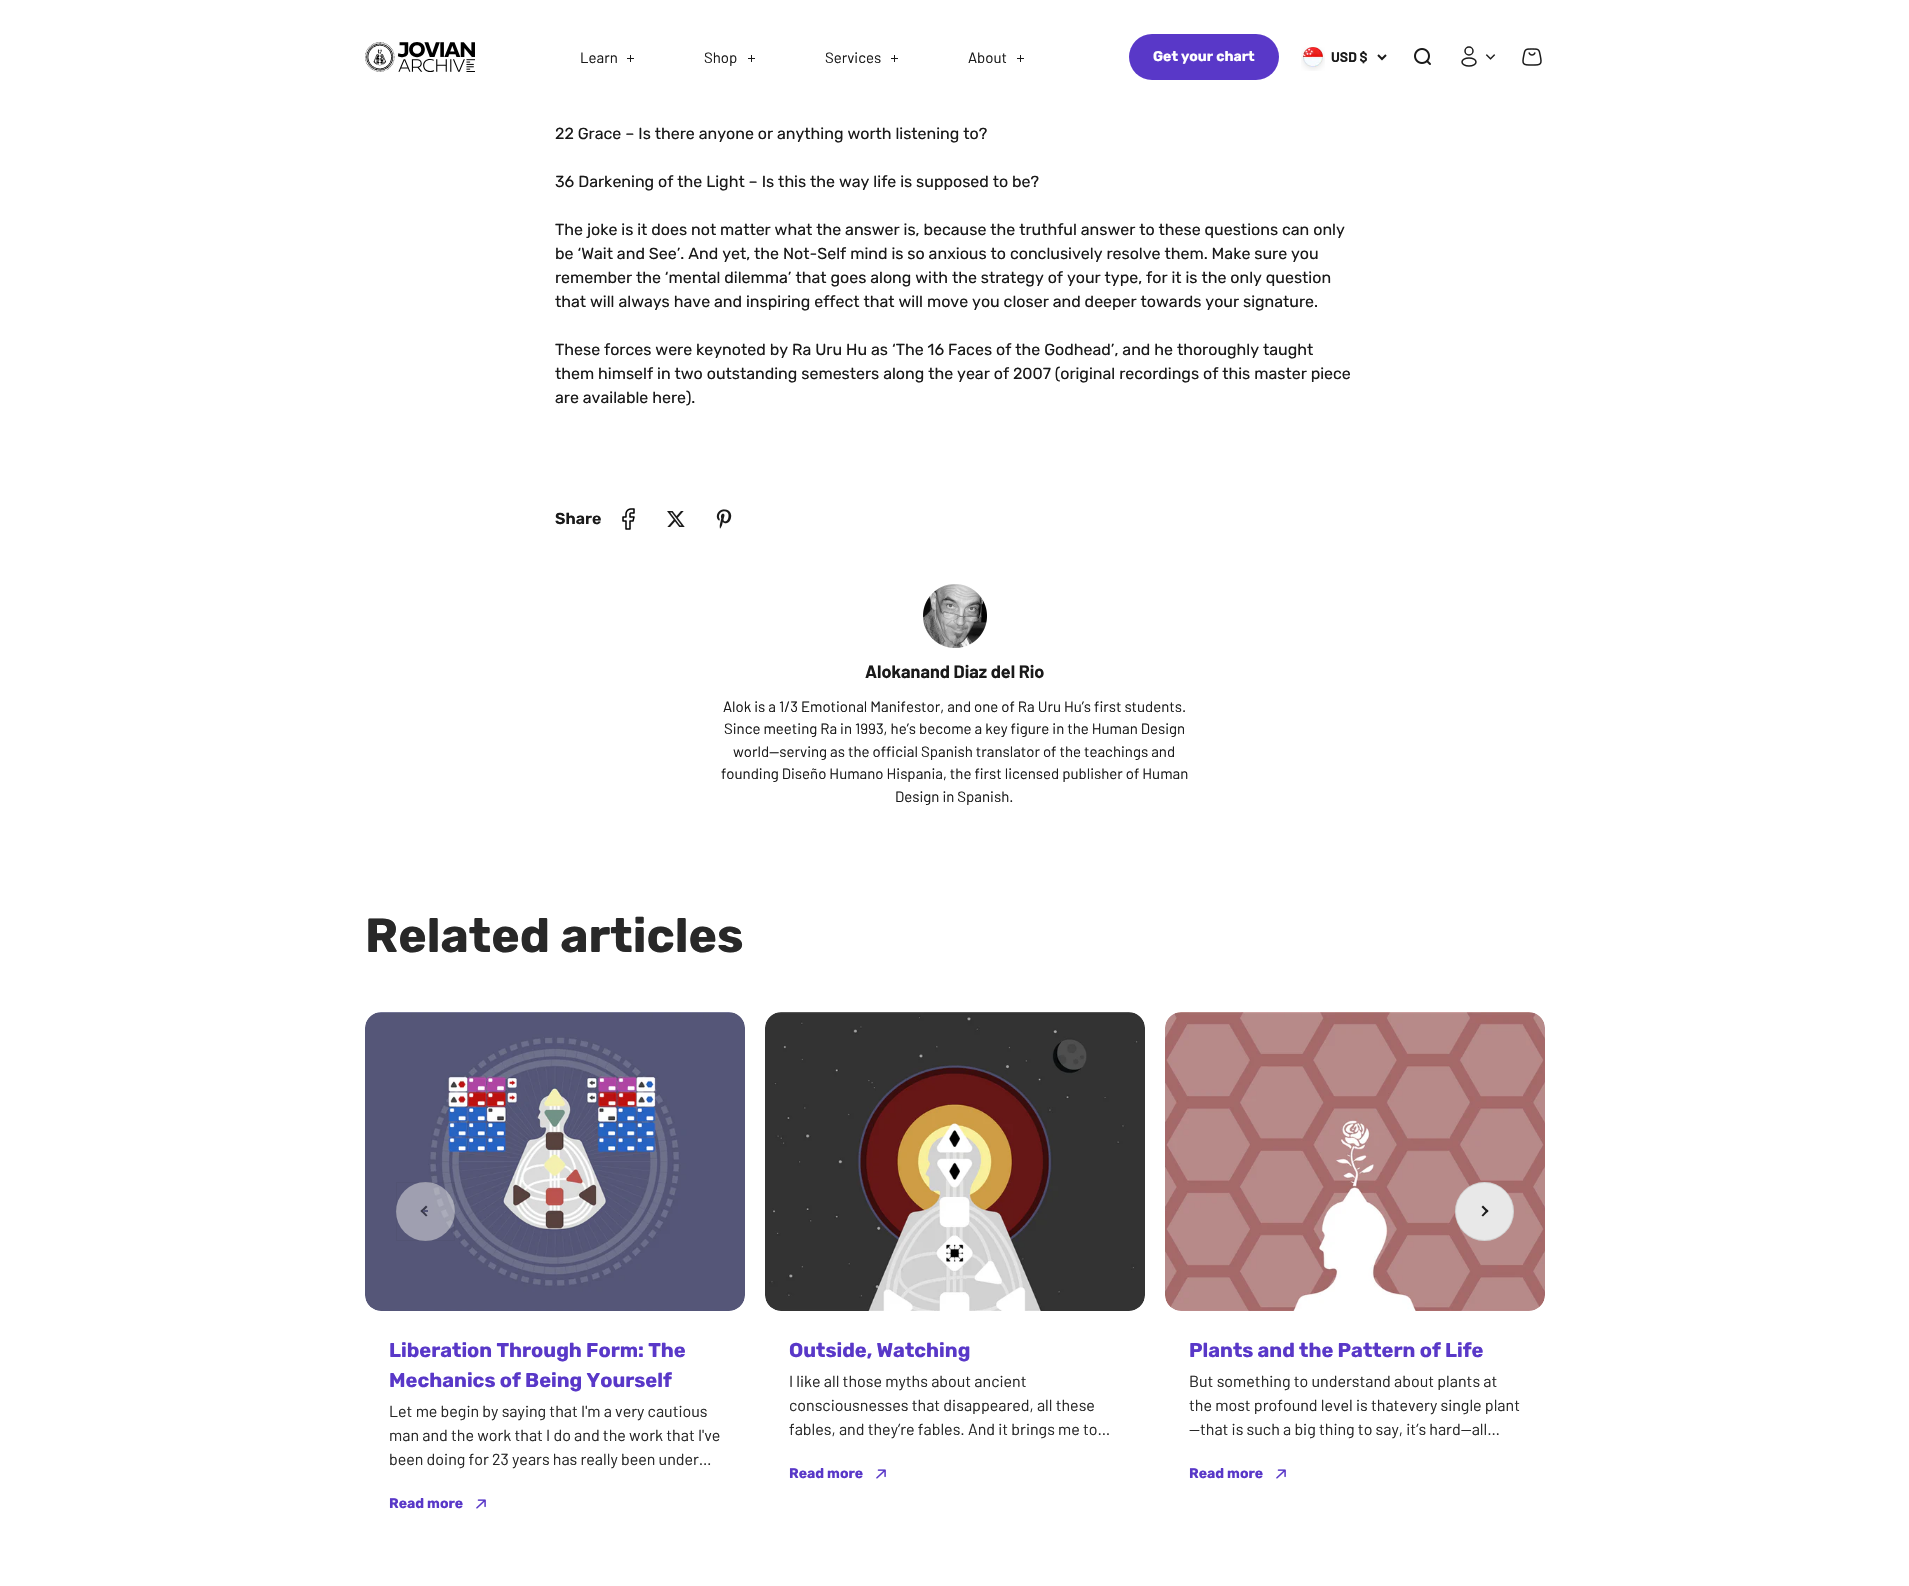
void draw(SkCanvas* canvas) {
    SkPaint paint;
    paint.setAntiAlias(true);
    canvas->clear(0xFFFFFFFF);
    canvas->drawImageRect(SkImages::DeferredFromEncodedData(SkData::MakeFromFileName("img1.png")), SkRect::MakeXYWH(365, 42, 110, 30), SkSamplingOptions());
    SkFont font1(fontMgr->matchFamilyStyle("Barlow", SkFontStyle::Normal()), 15);
    font1.setSubpixel(true);
    paint.setColor(0xFF1A1A1A);
    canvas->drawString("Learn", 580, 63, font1, paint);
    canvas->drawRect(SkRect::MakeXYWH(630, 55, 1, 7), paint);
    canvas->drawRect(SkRect::MakeXYWH(627, 58, 7, 1), paint);
    canvas->drawString("Shop", 704, 63, font1, paint);
    canvas->drawRect(SkRect::MakeXYWH(751, 55, 1, 7), paint);
    canvas->drawRect(SkRect::MakeXYWH(748, 58, 7, 1), paint);
    canvas->drawString("Services", 825, 63, font1, paint);
    canvas->drawRect(SkRect::MakeXYWH(894, 55, 1, 7), paint);
    canvas->drawRect(SkRect::MakeXYWH(891, 58, 7, 1), paint);
    canvas->drawString("About", 968, 63, font1, paint);
    canvas->drawRect(SkRect::MakeXYWH(1020, 55, 1, 7), paint);
    canvas->drawRect(SkRect::MakeXYWH(1017, 58, 7, 1), paint);
    paint.setColor(0xFF5938C8);
    canvas->drawRoundRect(SkRect::MakeXYWH(1129, 34, 150, 46), 23, 23, paint);
    SkFont font2(fontMgr->matchFamilyStyle("Rubik", SkFontStyle::Bold()), 14);
    font2.setSubpixel(true);
    paint.setColor(0xFFFFFFFF);
    canvas->drawString("Get your chart", 1153, 61, font2, paint);
    canvas->drawImageRect(SkImages::DeferredFromEncodedData(SkData::MakeFromFileName("img2.png")), SkRect::MakeXYWH(1301, 47, 24, 24), SkSamplingOptions());
    SkFont font3(fontMgr->matchFamilyStyle("Barlow", SkFontStyle::Bold()), 14);
    font3.setSubpixel(true);
    paint.setColor(0xFF1A1A1A);
    canvas->drawString("USD $", 1331, 62, font3, paint);
    paint.setStyle(SkPaint::kStroke_Style);
    paint.setStrokeWidth(2);
    canvas->drawPath(SkPathBuilder().moveTo(1378, 55).lineTo(1382, 59).lineTo(1386, 55).detach(), paint);
    canvas->drawImageRect(SkImages::DeferredFromEncodedData(SkData::MakeFromFileName("img3.png")), SkRect::MakeXYWH(1414, 48, 17, 17), SkSamplingOptions());
    paint.setStrokeWidth(1.5f);
    canvas->drawCircle(1469, 51, 4, paint);
    canvas->drawOval(SkRect::MakeXYWH(1462, 58, 14, 8), paint);
    canvas->drawImageRect(SkImages::DeferredFromEncodedData(SkData::MakeFromFileName("img4.png")), SkRect::MakeXYWH(1485, 54, 11, 6), SkSamplingOptions());
    canvas->drawImageRect(SkImages::DeferredFromEncodedData(SkData::MakeFromFileName("img5.png")), SkRect::MakeXYWH(1522, 48, 20, 18), SkSamplingOptions());
    SkFont font4(fontMgr->matchFamilyStyle("Rubik", SkFontStyle::Normal()), 16);
    font4.setSubpixel(true);
    paint.setStyle(SkPaint::kFill_Style);
    canvas->drawString("22 Grace – Is there anyone or anything worth listening to?", 555, 139, font4, paint);
    canvas->drawString("36 Darkening of the Light – Is this the way life is supposed to be?", 555, 187, font4, paint);
    canvas->drawString("The joke is it does not matter what the answer is, because the truthful answer to these questions can only", 555, 235, font4, paint);
    canvas->drawString("be ‘Wait and See’. And yet, the Not-Self mind is so anxious to conclusively resolve them. Make sure you", 555, 259, font4, paint);
    canvas->drawString("remember the ‘mental dilemma’ that goes along with the strategy of your type, for it is the only question", 555, 283, font4, paint);
    canvas->drawString("that will always have and inspiring effect that will move you closer and deeper towards your signature.", 555, 307, font4, paint);
    canvas->drawString("These forces were keynoted by Ra Uru Hu as ‘The 16 Faces of the Godhead’, and he thoroughly taught", 555, 355, font4, paint);
    canvas->drawString("them himself in two outstanding semesters along the year of 2007 (original recordings of this master piece", 555, 379, font4, paint);
    canvas->drawString("are available here).", 555, 403, font4, paint);
    SkFont font5(fontMgr->matchFamilyStyle("Rubik", SkFontStyle(600, SkFontStyle::kNormal_Width, SkFontStyle::kUpright_Slant)), 16);
    font5.setSubpixel(true);
    canvas->drawString("Share", 555, 524, font5, paint);
    canvas->drawImageRect(SkImages::DeferredFromEncodedData(SkData::MakeFromFileName("img6.png")), SkRect::MakeXYWH(622, 508, 13, 22), SkSamplingOptions());
    canvas->drawImageRect(SkImages::DeferredFromEncodedData(SkData::MakeFromFileName("img7.png")), SkRect::MakeXYWH(667, 511, 18, 16), SkSamplingOptions());
    canvas->drawImageRect(SkImages::DeferredFromEncodedData(SkData::MakeFromFileName("img8.png")), SkRect::MakeXYWH(716, 509, 16, 20), SkSamplingOptions());
    canvas->drawImageRect(SkImages::DeferredFromEncodedData(SkData::MakeFromFileName("img9.png")), SkRect::MakeXYWH(923, 584, 64, 64), SkSamplingOptions());
    SkFont font6(fontMgr->matchFamilyStyle("Barlow", SkFontStyle::Bold()), 18);
    font6.setSubpixel(true);
    canvas->drawString("Alokanand Diaz del Rio", 865, 678, font6, paint);
    canvas->drawString("Alok is a 1/3 Emotional Manifestor, and one of Ra Uru Hu’s first students.", 723, 712, font1, paint);
    canvas->drawString("Since meeting Ra in 1993, he’s become a key figure in the Human Design", 724, 734, font1, paint);
    canvas->drawString("world—serving as the official Spanish translator of the teachings and", 733, 757, font1, paint);
    canvas->drawString("founding Diseño Humano Hispania, the first licensed publisher of Human", 721, 779, font1, paint);
    canvas->drawString("Design in Spanish.", 895, 802, font1, paint);
    SkFont font7(fontMgr->matchFamilyStyle("Rubik", SkFontStyle::Bold()), 48);
    font7.setSubpixel(true);
    paint.setColor(0xFF282828);
    canvas->drawString("Related articles", 365, 952, font7, paint);
    canvas->drawImageRect(SkImages::DeferredFromEncodedData(SkData::MakeFromFileName("img10.png")), SkRect::MakeXYWH(365, 1012, 380, 299), SkSamplingOptions());
    paint.setColor(0x80E8E8E8);
    canvas->drawCircle(425.5f, 1211.5f, 29.5f, paint);
    paint.setStyle(SkPaint::kStroke_Style);
    paint.setStrokeWidth(1);
    paint.setColor(0x0F282828);
    canvas->drawRect(SkRect::MakeXYWH(396.5f, 1182.5f, 58, 58), paint);
    paint.setStyle(SkPaint::kFill_Style);
    paint.setColor(0xFF383849);
    canvas->drawPath(SkPathBuilder().moveTo(426, 1216.5f).lineTo(420.5f, 1211).lineTo(422, 1209.5f).lineTo(427.5f, 1215.5f).close().detach(), paint);
    canvas->drawPath(SkPathBuilder().moveTo(422, 1212.5f).lineTo(420.5f, 1211).lineTo(426, 1205.5f).lineTo(427.5f, 1207).close().detach(), paint);
    paint.setColor(0xFF555678);
    canvas->drawRect(SkRect::MakeXYWH(423, 1210, 5, 2), paint);
    canvas->drawImageRect(SkImages::DeferredFromEncodedData(SkData::MakeFromFileName("img13.png")), SkRect::MakeXYWH(1165, 1012, 380, 299), SkSamplingOptions());
    paint.setColor(0xFFE8E8E8);
    canvas->drawCircle(1484.5f, 1211.5f, 29.5f, paint);
    paint.setStyle(SkPaint::kStroke_Style);
    paint.setColor(0x1F282828);
    canvas->drawCircle(1484.5f, 1211.5f, 29, paint);
    paint.setStyle(SkPaint::kFill_Style);
    paint.setColor(0xFF1A1A1A);
    canvas->drawPath(SkPathBuilder().moveTo(1483, 1205.5f).lineTo(1488.5f, 1211).lineTo(1487, 1212.5f).lineTo(1481.5f, 1207).close().detach(), paint);
    canvas->drawPath(SkPathBuilder().moveTo(1487, 1209.5f).lineTo(1488.5f, 1211).lineTo(1483, 1216.5f).lineTo(1481.5f, 1215.5f).close().detach(), paint);
    SkFont font8(fontMgr->matchFamilyStyle("Rubik", SkFontStyle::Bold()), 20);
    font8.setSubpixel(true);
    paint.setColor(0xFF5938C8);
    canvas->drawString("Liberation Through Form: The", 389, 1357, font8, paint);
    canvas->drawString("Mechanics of Being Yourself", 389, 1387, font8, paint);
    SkFont font9(fontMgr->matchFamilyStyle("Barlow", SkFontStyle::Normal()), 16);
    font9.setSubpixel(true);
    paint.setColor(0xFF282828);
    canvas->drawString("Let me begin by saying that I'm a very cautious", 389, 1417, font9, paint);
    canvas->drawString("man and the work that I do and the work that I've", 389, 1441, font9, paint);
    canvas->drawString("been doing for 23 years has really been under…", 389, 1465, font9, paint);
    paint.setColor(0xFF5938C8);
    canvas->drawString("Read more", 389, 1508, font2, paint);
    canvas->drawImageRect(SkImages::DeferredFromEncodedData(SkData::MakeFromFileName("img11.png")), SkRect::MakeXYWH(476, 1499, 10, 10), SkSamplingOptions());
    canvas->drawImageRect(SkImages::DeferredFromEncodedData(SkData::MakeFromFileName("img12.png")), SkRect::MakeXYWH(765, 1012, 380, 299), SkSamplingOptions());
    canvas->drawString("Outside, Watching", 789, 1357, font8, paint);
    paint.setColor(0xFF282828);
    canvas->drawString("I like all those myths about ancient", 789, 1387, font9, paint);
    canvas->drawString("consciousnesses that disappeared, all these", 789, 1411, font9, paint);
    canvas->drawString("fables, and they’re fables. And it brings me to…", 789, 1435, font9, paint);
    paint.setColor(0xFF5938C8);
    canvas->drawString("Read more", 789, 1478, font2, paint);
    canvas->drawImageRect(SkImages::DeferredFromEncodedData(SkData::MakeFromFileName("img11.png")), SkRect::MakeXYWH(876, 1469, 10, 10), SkSamplingOptions());
    canvas->drawString("Plants and the Pattern of Life", 1189, 1357, font8, paint);
    paint.setColor(0xFF282828);
    canvas->drawString("But something to understand about plants at", 1189, 1387, font9, paint);
    canvas->drawString("the most profound level is thatevery single plant", 1189, 1411, font9, paint);
    canvas->drawString("—that is such a big thing to say, it’s hard—all…", 1189, 1435, font9, paint);
    paint.setColor(0xFF5938C8);
    canvas->drawString("Read more", 1189, 1478, font2, paint);
    canvas->drawImageRect(SkImages::DeferredFromEncodedData(SkData::MakeFromFileName("img11.png")), SkRect::MakeXYWH(1276, 1469, 10, 10), SkSamplingOptions());
}
